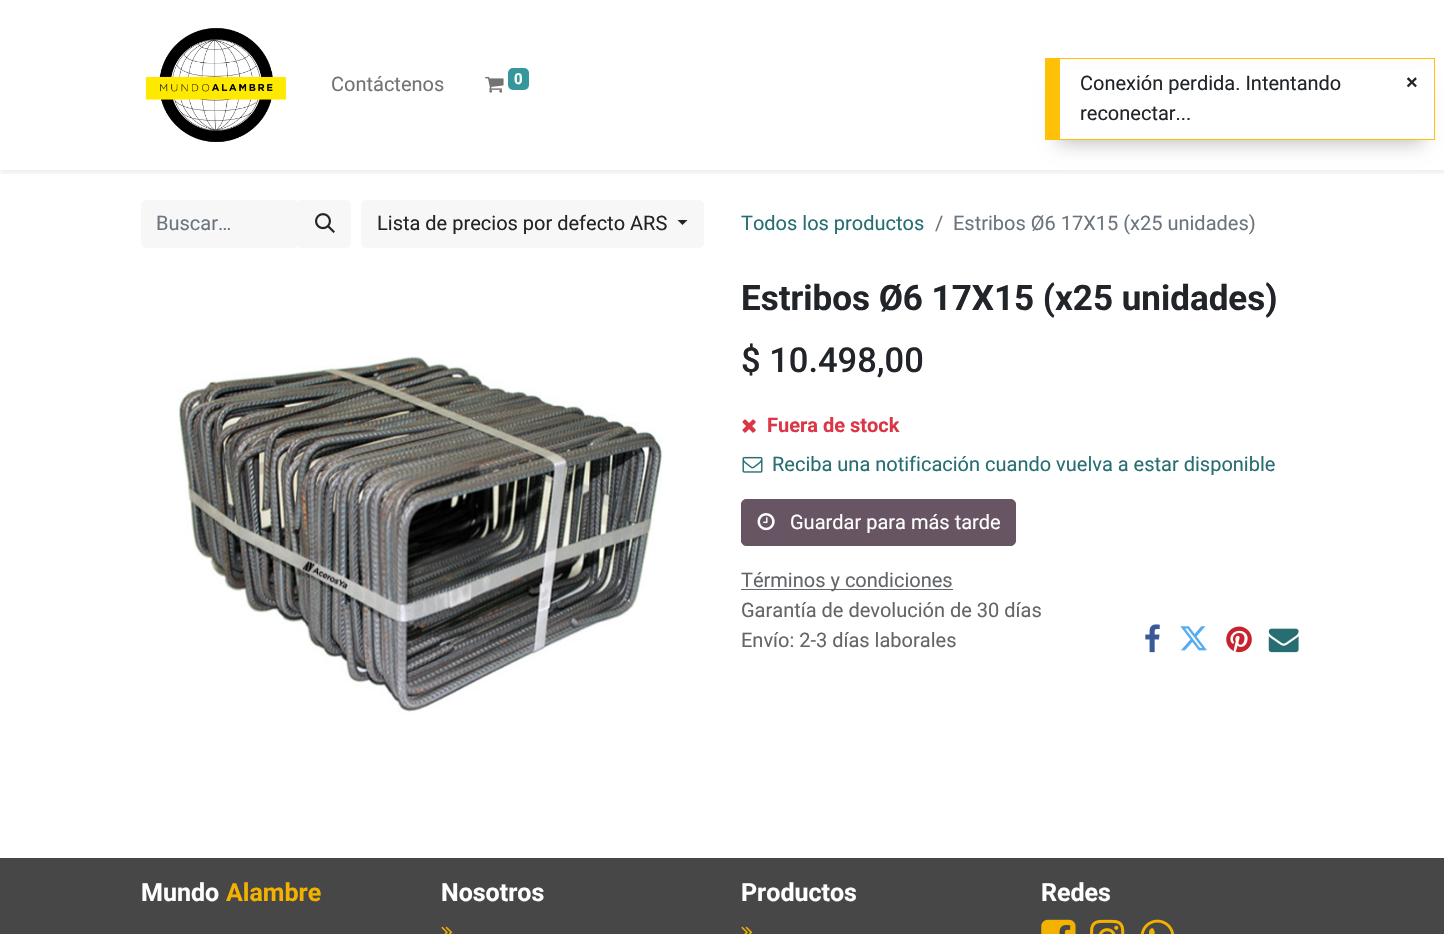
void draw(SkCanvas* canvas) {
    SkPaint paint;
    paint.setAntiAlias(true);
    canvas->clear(0xFFFFFFFF);
    canvas->save();
    canvas->clipRect(SkRect::MakeXYWH(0, 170, 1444, 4));
    paint.setColor(0x12000000);
    paint.setMaskFilter(SkMaskFilter::MakeBlur(kNormal_SkBlurStyle, 2.5f));
    canvas->drawRect(SkRect::MakeXYWH(0, 3, 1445, 170), paint);
    paint.setMaskFilter(nullptr);
    canvas->restore();
    canvas->drawImageRect(SkImages::DeferredFromEncodedData(SkData::MakeFromFileName("img1.png")), SkRect::MakeXYWH(145, 28, 142, 114), SkSamplingOptions());
    SkFont font1(fontMgr->matchFamilyStyle("Roboto", SkFontStyle::Normal()), 20);
    font1.setSubpixel(true);
    paint.setColor(0xFF737373);
    canvas->drawString("Contáctenos", 331, 91, font1, paint);
    canvas->drawImageRect(SkImages::DeferredFromEncodedData(SkData::MakeFromFileName("img2.png")), SkRect::MakeXYWH(485, 76, 19, 17), SkSamplingOptions());
    paint.setColor(0xFF35979C);
    canvas->drawRoundRect(SkRect::MakeXYWH(508, 68, 21, 22), 5, 5, paint);
    SkFont font2(fontMgr->matchFamilyStyle("Roboto", SkFontStyle::Bold()), 15);
    font2.setSubpixel(true);
    paint.setColor(0xFFFFFFFF);
    canvas->drawString("0", 514, 84, font2, paint);
    paint.setColor(0xFFF7F7F7);
    canvas->drawRoundRect(SkRect::MakeXYWH(141, 200, 159, 48), 6, 6, paint);
    paint.setColor(0xFF6C757D);
    canvas->drawString("Buscar…", 156, 230, font1, paint);
    paint.setColor(0xFFF7F7F7);
    canvas->drawPath(SkPathBuilder().moveTo(299, 200).lineTo(346, 200).cubicTo(349, 200, 351, 202, 351, 205).lineTo(351, 243).cubicTo(351, 246, 349, 248, 346, 248).lineTo(299, 248).close().detach(), paint);
    canvas->drawImageRect(SkImages::DeferredFromEncodedData(SkData::MakeFromFileName("img3.png")), SkRect::MakeXYWH(315, 213, 20, 20), SkSamplingOptions());
    canvas->drawRoundRect(SkRect::MakeXYWH(361, 200, 343, 48), 5, 5, paint);
    paint.setColor(0xFF212529);
    canvas->drawString("Lista de precios por defecto ARS", 377, 230, font1, paint);
    canvas->drawPath(SkPathBuilder().moveTo(677.5f, 220).lineTo(687.5f, 220).lineTo(682.5f, 225).close().detach(), paint);
    paint.setColor(0xFF276E72);
    canvas->drawString("Todos los productos", 741, 230, font1, paint);
    paint.setColor(0xFF6C757D);
    canvas->drawString("/", 935, 230, font1, paint);
    canvas->drawString("Estribos Ø6 17X15 (x25 unidades)", 953, 230, font1, paint);
    canvas->drawImageRect(SkImages::DeferredFromEncodedData(SkData::MakeFromFileName("img4.png")), SkRect::MakeXYWH(178, 356, 485, 357), SkSamplingOptions());
    SkFont font3(fontMgr->matchFamilyStyle("Roboto", SkFontStyle::Bold()), 35);
    font3.setSubpixel(true);
    paint.setColor(0xFF212529);
    canvas->drawString("Estribos Ø6 17X15 (x25 unidades)", 741, 310, font3, paint);
    SkFont font4(fontMgr->matchFamilyStyle("Roboto", SkFontStyle(500, SkFontStyle::kNormal_Width, SkFontStyle::kUpright_Slant)), 34.5f);
    font4.setSubpixel(true);
    canvas->drawString("$ 10.498,00", 741, 372, font4, paint);
    canvas->drawImageRect(SkImages::DeferredFromEncodedData(SkData::MakeFromFileName("img5.png")), SkRect::MakeXYWH(742, 419, 14, 14), SkSamplingOptions());
    SkFont font5(fontMgr->matchFamilyStyle("Roboto", SkFontStyle::Bold()), 20);
    font5.setSubpixel(true);
    paint.setColor(0xFFDC3545);
    canvas->drawString("Fuera de stock", 767, 432, font5, paint);
    canvas->drawImageRect(SkImages::DeferredFromEncodedData(SkData::MakeFromFileName("img6.png")), SkRect::MakeXYWH(742, 456, 21, 17), SkSamplingOptions());
    paint.setColor(0xFF276E72);
    canvas->drawString("Reciba una notificación cuando vuelva a estar disponible", 772, 471, font1, paint);
    paint.setColor(0xFF685563);
    canvas->drawRoundRect(SkRect::MakeXYWH(741.5f, 499.5f, 274, 46), 4.5f, 4.5f, paint);
    paint.setStyle(SkPaint::kStroke_Style);
    paint.setStrokeWidth(1);
    canvas->drawRoundRect(SkRect::MakeXYWH(741.5f, 499.5f, 274, 46), 4.5f, 4.5f, paint);
    canvas->drawImageRect(SkImages::DeferredFromEncodedData(SkData::MakeFromFileName("img7.png")), SkRect::MakeXYWH(757, 513, 18, 18), SkSamplingOptions());
    paint.setStyle(SkPaint::kFill_Style);
    paint.setColor(0xFFFFFFFF);
    canvas->drawString("Guardar para más tarde", 790, 529, font1, paint);
    paint.setColor(0xFF646669);
    canvas->drawRect(SkRect::MakeXYWH(741, 589, 212, 1), paint);
    paint.setColor(0xFF636669);
    canvas->drawString("Términos y condiciones", 741, 587, font1, paint);
    canvas->drawString("Garantía de devolución de 30 días", 741, 617, font1, paint);
    canvas->drawString("Envío: 2-3 días laborales", 741, 647, font1, paint);
    canvas->drawImageRect(SkImages::DeferredFromEncodedData(SkData::MakeFromFileName("img8.png")), SkRect::MakeXYWH(1145, 624, 15, 29), SkSamplingOptions());
    canvas->drawImageRect(SkImages::DeferredFromEncodedData(SkData::MakeFromFileName("img9.png")), SkRect::MakeXYWH(1180, 626, 27, 25), SkSamplingOptions());
    canvas->drawImageRect(SkImages::DeferredFromEncodedData(SkData::MakeFromFileName("img10.png")), SkRect::MakeXYWH(1226, 626, 26, 27), SkSamplingOptions());
    canvas->drawImageRect(SkImages::DeferredFromEncodedData(SkData::MakeFromFileName("img11.png")), SkRect::MakeXYWH(1268, 628, 31, 25), SkSamplingOptions());
    paint.setColor(0xFF484748);
    canvas->drawRect(SkRect::MakeXYWH(0, 858, 1444, 76), paint);
    SkFont font6(fontMgr->matchFamilyStyle("Roboto", SkFontStyle::Bold()), 25);
    font6.setSubpixel(true);
    paint.setColor(0xFFFFFFFF);
    canvas->drawString("Mundo", 141, 901, font6, paint);
    paint.setColor(0xFFF3B200);
    canvas->drawString("Alambre", 226, 901, font6, paint);
    paint.setColor(0xFFFFFFFF);
    canvas->drawString("Nosotros", 441, 901, font6, paint);
    canvas->drawImageRect(SkImages::DeferredFromEncodedData(SkData::MakeFromFileName("img12.png")), SkRect::MakeXYWH(441, 926, 12, 8), SkSamplingOptions());
    canvas->drawString("Productos", 741, 901, font6, paint);
    canvas->drawImageRect(SkImages::DeferredFromEncodedData(SkData::MakeFromFileName("img12.png")), SkRect::MakeXYWH(741, 926, 12, 8), SkSamplingOptions());
    canvas->drawString("Redes", 1041, 901, font6, paint);
    canvas->drawImageRect(SkImages::DeferredFromEncodedData(SkData::MakeFromFileName("img13.png")), SkRect::MakeXYWH(1041, 919, 35, 15), SkSamplingOptions());
    canvas->drawImageRect(SkImages::DeferredFromEncodedData(SkData::MakeFromFileName("img14.png")), SkRect::MakeXYWH(1090, 919, 35, 15), SkSamplingOptions());
    canvas->drawImageRect(SkImages::DeferredFromEncodedData(SkData::MakeFromFileName("img15.png")), SkRect::MakeXYWH(1140, 919, 34, 15), SkSamplingOptions());
    paint.setColor(0x40000000);
    paint.setMaskFilter(SkMaskFilter::MakeBlur(kNormal_SkBlurStyle, 9));
    canvas->drawRect(SkRect::MakeXYWH(1058, 85, 365, 58), paint);
    paint.setMaskFilter(nullptr);
    paint.setColor(0xFFFFFFFF);
    canvas->drawRect(SkRect::MakeXYWH(1060, 69, 374, 70), paint);
    paint.setColor(0xFFFFC107);
    canvas->drawRect(SkRect::MakeXYWH(1060, 58, 375, 1), paint);
    canvas->drawRect(SkRect::MakeXYWH(1434, 58, 1, 82), paint);
    canvas->drawRect(SkRect::MakeXYWH(1060, 139, 375, 1), paint);
    canvas->drawRect(SkRect::MakeXYWH(1045, 58, 15, 82), paint);
    paint.setColor(0xFF212529);
    canvas->drawString("Conexión perdida. Intentando", 1080, 90, font1, paint);
    canvas->drawString("reconectar...", 1080, 120, font1, paint);
    SkFont font7(fontMgr->matchFamilyStyle("Liberation Sans", SkFontStyle::Bold()), 20);
    font7.setSubpixel(true);
    canvas->drawString("×", 1406, 89, font7, paint);
}
